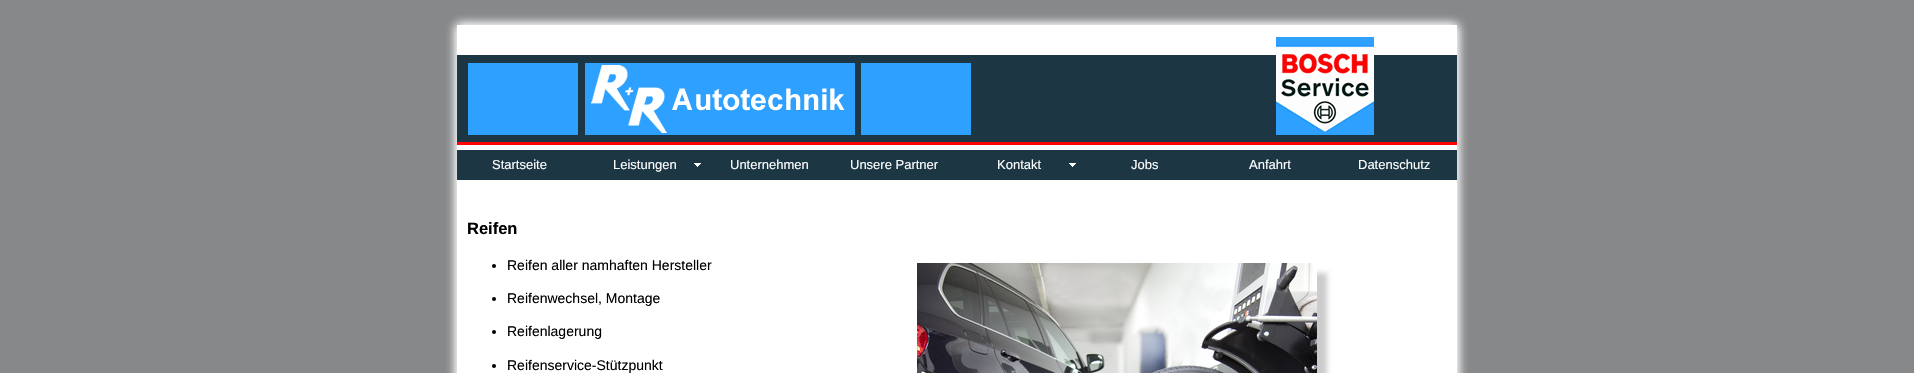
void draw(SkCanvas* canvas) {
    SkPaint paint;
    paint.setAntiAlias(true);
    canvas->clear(0xFF87888A);
    paint.setColor(0xFFFFFFFF);
    paint.setMaskFilter(SkMaskFilter::MakeBlur(kNormal_SkBlurStyle, 5));
    canvas->drawRect(SkRect::MakeXYWH(457, 25, 1000, 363), paint);
    paint.setMaskFilter(nullptr);
    paint.setMaskFilter(SkMaskFilter::MakeBlur(kNormal_SkBlurStyle, 5));
    canvas->drawRect(SkRect::MakeXYWH(457, 25, 1000, 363), paint);
    paint.setMaskFilter(nullptr);
    canvas->drawRect(SkRect::MakeXYWH(457, 25, 1000, 348), paint);
    canvas->drawImageRect(SkImages::DeferredFromEncodedData(SkData::MakeFromFileName("img1.png")), SkRect::MakeXYWH(457, 37, 1000, 108), SkSamplingOptions());
    paint.setColor(0xFF1C3644);
    canvas->drawRect(SkRect::MakeXYWH(457, 150, 1000, 30), paint);
    SkFont font1(fontMgr->matchFamilyStyle("Liberation Sans", SkFontStyle::Normal()), 13);
    font1.setSubpixel(true);
    paint.setColor(0xFFFFFFFF);
    canvas->drawString("Startseite", 492, 169, font1, paint);
    canvas->drawImageRect(SkImages::DeferredFromEncodedData(SkData::MakeFromFileName("img2.png")), SkRect::MakeXYWH(694, 163, 7, 4), SkSamplingOptions());
    canvas->drawString("Leistungen", 613, 169, font1, paint);
    canvas->drawString("Unternehmen", 730, 169, font1, paint);
    canvas->drawString("Unsere Partner", 850, 169, font1, paint);
    canvas->drawImageRect(SkImages::DeferredFromEncodedData(SkData::MakeFromFileName("img2.png")), SkRect::MakeXYWH(1069, 163, 7, 4), SkSamplingOptions());
    canvas->drawString("Kontakt", 997, 169, font1, paint);
    canvas->drawString("Jobs", 1131, 169, font1, paint);
    canvas->drawString("Anfahrt", 1249, 169, font1, paint);
    canvas->drawString("Datenschutz", 1358, 169, font1, paint);
    SkFont font2(fontMgr->matchFamilyStyle("Liberation Sans", SkFontStyle::Bold()), 16.5f);
    font2.setSubpixel(true);
    paint.setColor(0xFF000000);
    canvas->drawString("Reifen", 467, 234, font2, paint);
    canvas->drawCircle(494, 266, 2, paint);
    SkFont font3(fontMgr->matchFamilyStyle("Liberation Sans", SkFontStyle::Normal()), 14);
    font3.setSubpixel(true);
    canvas->drawString("Reifen aller namhaften Hersteller", 507, 270, font3, paint);
    canvas->drawCircle(494, 299, 2, paint);
    canvas->drawString("Reifenwechsel, Montage", 507, 303, font3, paint);
    canvas->drawCircle(494, 332, 2, paint);
    canvas->drawString("Reifenlagerung", 507, 336, font3, paint);
    canvas->drawCircle(494, 366, 2, paint);
    canvas->drawString("Reifenservice-Stützpunkt", 507, 370, font3, paint);
    paint.setColor(0xFFCCCCCC);
    paint.setMaskFilter(SkMaskFilter::MakeBlur(kNormal_SkBlurStyle, 2.5f));
    canvas->drawRect(SkRect::MakeXYWH(927, 273, 400, 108), paint);
    paint.setMaskFilter(nullptr);
    canvas->drawImageRect(SkImages::DeferredFromEncodedData(SkData::MakeFromFileName("img3.png")), SkRect::MakeXYWH(917, 263, 400, 110), SkSamplingOptions());
}
